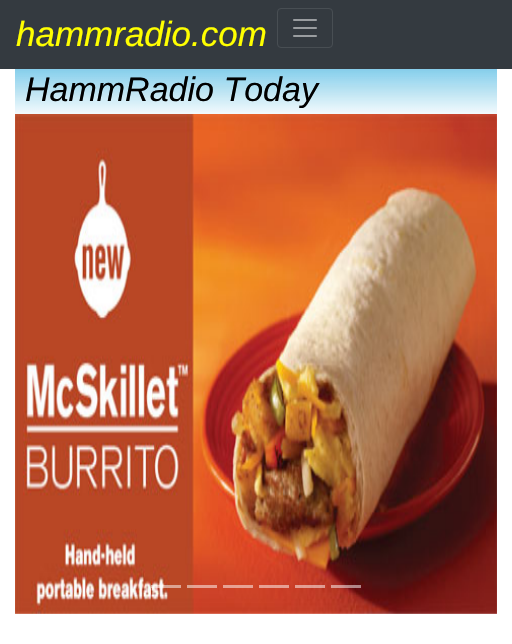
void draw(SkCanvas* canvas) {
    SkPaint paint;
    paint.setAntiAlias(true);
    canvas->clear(0xFFFFFFFF);
    paint.setColor(0xFF343A40);
    canvas->drawRect(SkRect::MakeXYWH(0, 0, 512, 69), paint);
    SkFont font1(fontMgr->matchFamilyStyle("Liberation Sans", SkFontStyle::Italic()), 35);
    font1.setSubpixel(true);
    paint.setColor(0xFFFFFF00);
    canvas->drawString("hammradio.com", 16, 46, font1, paint);
    paint.setStyle(SkPaint::kStroke_Style);
    paint.setStrokeWidth(1);
    paint.setColor(0xFF484E53);
    canvas->drawRoundRect(SkRect::MakeXYWH(277.5f, 8.5f, 55, 39), 3.5f, 3.5f, paint);
    canvas->drawImageRect(SkImages::DeferredFromEncodedData(SkData::MakeFromFileName("img1.png")), SkRect::MakeXYWH(293, 19, 24, 18), SkSamplingOptions());
    canvas->drawImageRect(SkImages::DeferredFromEncodedData(SkData::MakeFromFileName("img2.png")), SkRect::MakeXYWH(15, 69, 482, 45), SkSamplingOptions());
    SkFont font2(fontMgr->matchFamilyStyle("Liberation Sans", SkFontStyle::Italic()), 34);
    font2.setSubpixel(true);
    paint.setStyle(SkPaint::kFill_Style);
    paint.setColor(0xFF000000);
    canvas->drawString("HammRadio Today", 25, 101, font2, paint);
    canvas->drawImageRect(SkImages::DeferredFromEncodedData(SkData::MakeFromFileName("img3.png")), SkRect::MakeXYWH(15, 114, 482, 500), SkSamplingOptions());
    paint.setColor(0x80FFFFFF);
    canvas->drawRect(SkRect::MakeXYWH(151, 585, 30, 3), paint);
    canvas->drawRect(SkRect::MakeXYWH(187, 585, 30, 3), paint);
    canvas->drawRect(SkRect::MakeXYWH(223, 585, 30, 3), paint);
    canvas->drawRect(SkRect::MakeXYWH(259, 585, 30, 3), paint);
    canvas->drawRect(SkRect::MakeXYWH(295, 585, 30, 3), paint);
    canvas->drawRect(SkRect::MakeXYWH(331, 585, 30, 3), paint);
}
